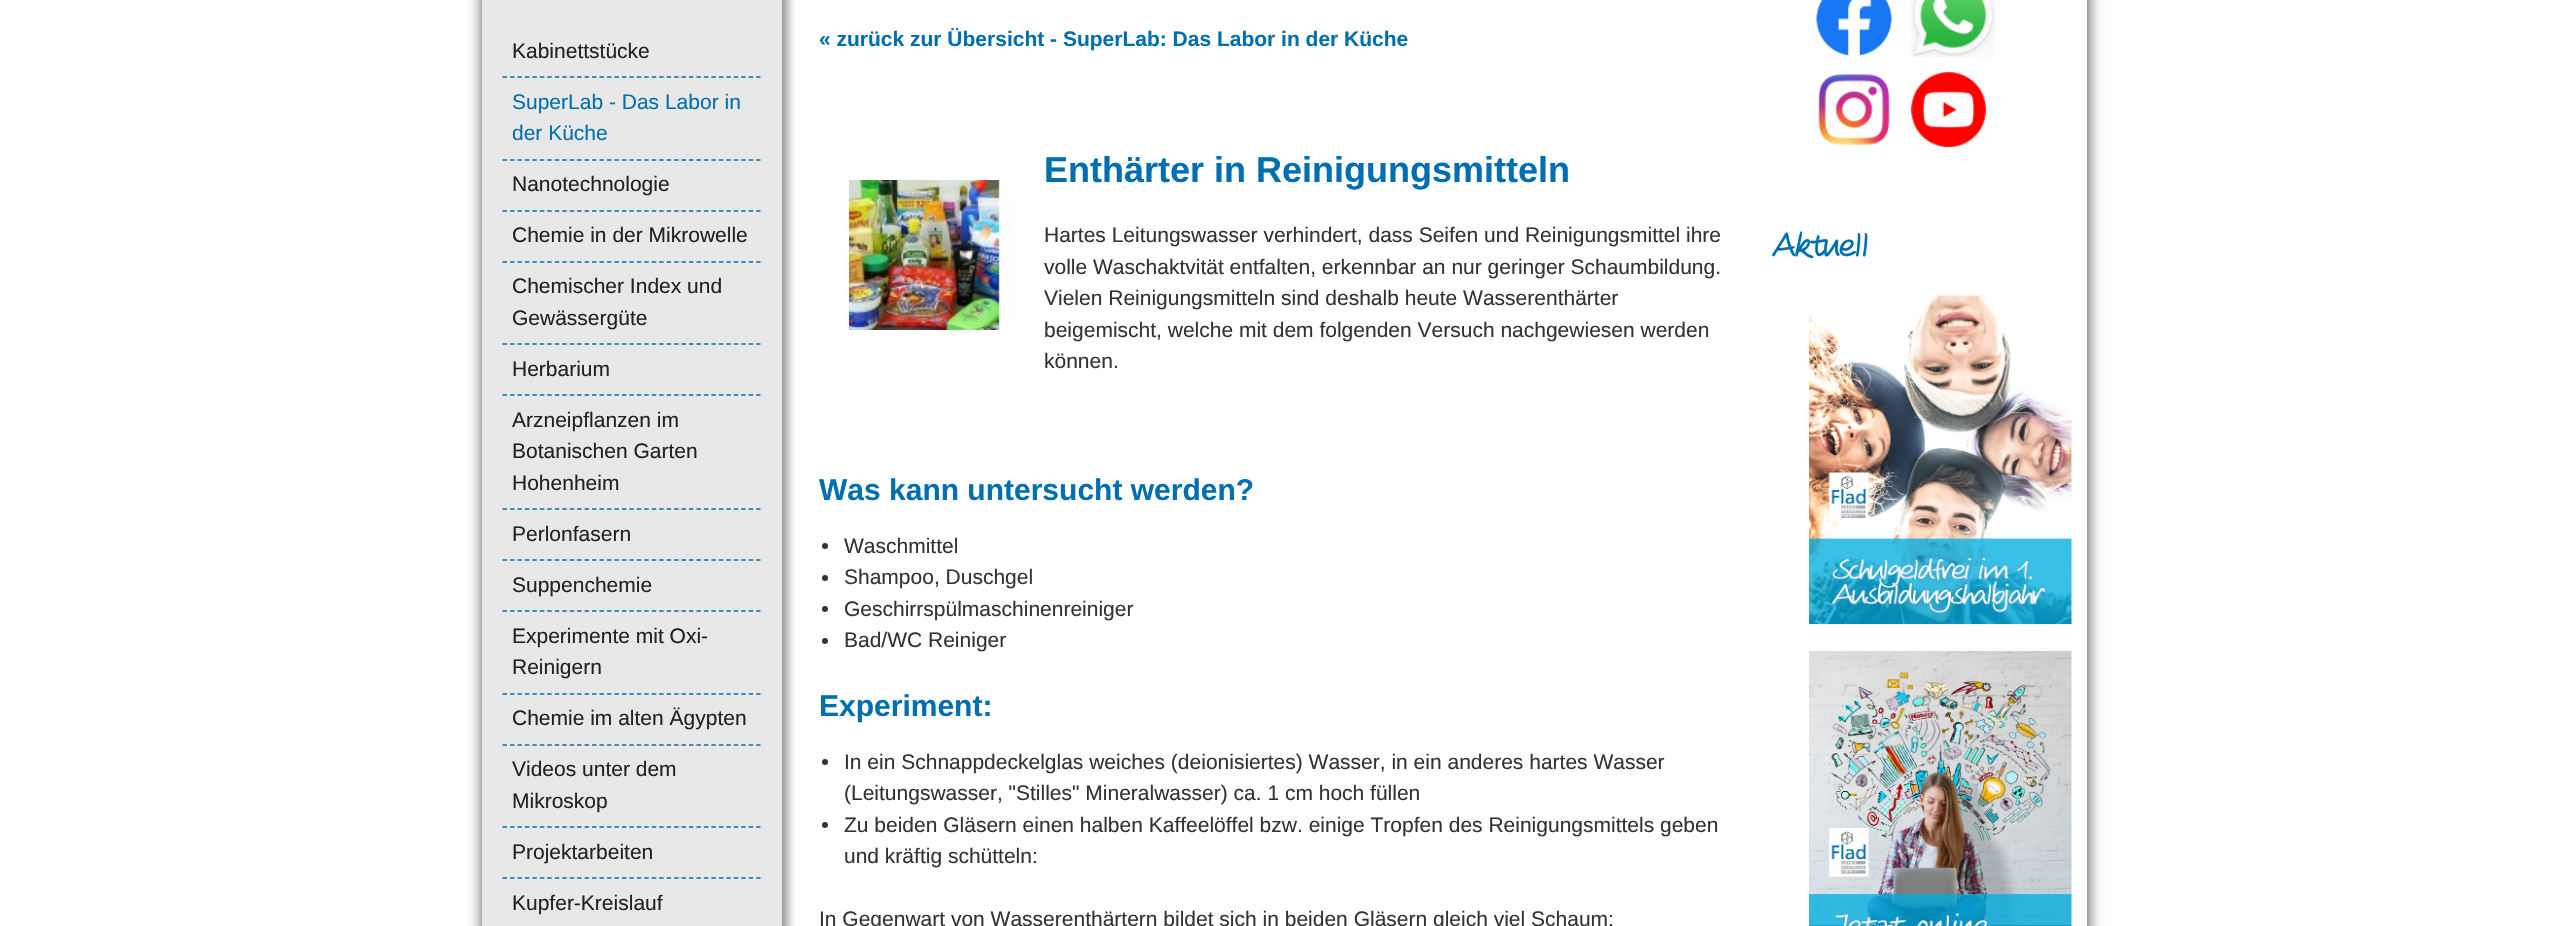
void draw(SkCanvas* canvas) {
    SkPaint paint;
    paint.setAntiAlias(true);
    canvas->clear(0xFFFFFFFF);
    paint.setColor(0xB3000000);
    paint.setMaskFilter(SkMaskFilter::MakeBlur(kNormal_SkBlurStyle, 7));
    canvas->drawRect(SkRect::MakeXYWH(483, -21, 1605, 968), paint);
    paint.setMaskFilter(nullptr);
    paint.setColor(0xFFFFFFFF);
    canvas->drawRect(SkRect::MakeXYWH(782, 0, 1305, 926), paint);
    paint.setColor(0x66000000);
    paint.setMaskFilter(SkMaskFilter::MakeBlur(kNormal_SkBlurStyle, 4));
    canvas->drawRect(SkRect::MakeXYWH(488, -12, 300, 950), paint);
    paint.setMaskFilter(nullptr);
    paint.setColor(0xFFE8E8E8);
    canvas->drawRect(SkRect::MakeXYWH(482, 0, 300, 926), paint);
    paint.setStyle(SkPaint::kStroke_Style);
    paint.setStrokeWidth(1.5f);
    paint.setColor(0xFF0073AD);
    paint.setPathEffect(SkDashPathEffect::Make({{4.5f, 2.96f}}, 0));
    canvas->drawPath(SkPathBuilder().moveTo(502.5f, 77).lineTo(760.5f, 77).detach(), paint);
    paint.setPathEffect(nullptr);
    SkFont font1(fontMgr->matchFamilyStyle("Liberation Sans", SkFontStyle::Normal()), 21);
    font1.setSubpixel(true);
    paint.setStyle(SkPaint::kFill_Style);
    paint.setColor(0xFF222222);
    canvas->drawString("Kabinettstücke", 512, 58, font1, paint);
    paint.setStyle(SkPaint::kStroke_Style);
    paint.setColor(0xFF0073AD);
    paint.setPathEffect(SkDashPathEffect::Make({{4.5f, 2.96f}}, 0));
    canvas->drawPath(SkPathBuilder().moveTo(502.5f, 160).lineTo(760.5f, 160).detach(), paint);
    paint.setPathEffect(nullptr);
    paint.setStyle(SkPaint::kFill_Style);
    paint.setColor(0xFF006FAF);
    canvas->drawString("SuperLab - Das Labor in", 512, 109, font1, paint);
    canvas->drawString("der Küche", 512, 140, font1, paint);
    paint.setStyle(SkPaint::kStroke_Style);
    paint.setColor(0xFF0073AD);
    paint.setPathEffect(SkDashPathEffect::Make({{4.5f, 2.96f}}, 0));
    canvas->drawPath(SkPathBuilder().moveTo(502.5f, 211).lineTo(760.5f, 211).detach(), paint);
    paint.setPathEffect(nullptr);
    paint.setStyle(SkPaint::kFill_Style);
    paint.setColor(0xFF222222);
    canvas->drawString("Nanotechnologie", 512, 191, font1, paint);
    paint.setStyle(SkPaint::kStroke_Style);
    paint.setColor(0xFF0073AD);
    paint.setPathEffect(SkDashPathEffect::Make({{4.5f, 2.96f}}, 0));
    canvas->drawPath(SkPathBuilder().moveTo(502.5f, 262).lineTo(760.5f, 262).detach(), paint);
    paint.setPathEffect(nullptr);
    paint.setStyle(SkPaint::kFill_Style);
    paint.setColor(0xFF222222);
    canvas->drawString("Chemie in der Mikrowelle", 512, 242, font1, paint);
    paint.setStyle(SkPaint::kStroke_Style);
    paint.setColor(0xFF0073AD);
    paint.setPathEffect(SkDashPathEffect::Make({{4.5f, 2.96f}}, 0));
    canvas->drawPath(SkPathBuilder().moveTo(502.5f, 344).lineTo(760.5f, 344).detach(), paint);
    paint.setPathEffect(nullptr);
    paint.setStyle(SkPaint::kFill_Style);
    paint.setColor(0xFF222222);
    canvas->drawString("Chemischer Index und", 512, 293, font1, paint);
    canvas->drawString("Gewässergüte", 512, 325, font1, paint);
    paint.setStyle(SkPaint::kStroke_Style);
    paint.setColor(0xFF0073AD);
    paint.setPathEffect(SkDashPathEffect::Make({{4.5f, 2.96f}}, 0));
    canvas->drawPath(SkPathBuilder().moveTo(502.5f, 395).lineTo(760.5f, 395).detach(), paint);
    paint.setPathEffect(nullptr);
    paint.setStyle(SkPaint::kFill_Style);
    paint.setColor(0xFF222222);
    canvas->drawString("Herbarium", 512, 376, font1, paint);
    paint.setStyle(SkPaint::kStroke_Style);
    paint.setColor(0xFF0073AD);
    paint.setPathEffect(SkDashPathEffect::Make({{4.5f, 2.96f}}, 0));
    canvas->drawPath(SkPathBuilder().moveTo(502.5f, 509).lineTo(760.5f, 509).detach(), paint);
    paint.setPathEffect(nullptr);
    paint.setStyle(SkPaint::kFill_Style);
    paint.setColor(0xFF222222);
    canvas->drawString("Arzneipflanzen im", 512, 427, font1, paint);
    canvas->drawString("Botanischen Garten", 512, 458, font1, paint);
    canvas->drawString("Hohenheim", 512, 490, font1, paint);
    paint.setStyle(SkPaint::kStroke_Style);
    paint.setColor(0xFF0073AD);
    paint.setPathEffect(SkDashPathEffect::Make({{4.5f, 2.96f}}, 0));
    canvas->drawPath(SkPathBuilder().moveTo(502.5f, 560).lineTo(760.5f, 560).detach(), paint);
    paint.setPathEffect(nullptr);
    paint.setStyle(SkPaint::kFill_Style);
    paint.setColor(0xFF222222);
    canvas->drawString("Perlonfasern", 512, 541, font1, paint);
    paint.setStyle(SkPaint::kStroke_Style);
    paint.setColor(0xFF0073AD);
    paint.setPathEffect(SkDashPathEffect::Make({{4.5f, 2.96f}}, 0));
    canvas->drawPath(SkPathBuilder().moveTo(502.5f, 611).lineTo(760.5f, 611).detach(), paint);
    paint.setPathEffect(nullptr);
    paint.setStyle(SkPaint::kFill_Style);
    paint.setColor(0xFF222222);
    canvas->drawString("Suppenchemie", 512, 592, font1, paint);
    paint.setStyle(SkPaint::kStroke_Style);
    paint.setColor(0xFF0073AD);
    paint.setPathEffect(SkDashPathEffect::Make({{4.5f, 2.96f}}, 0));
    canvas->drawPath(SkPathBuilder().moveTo(502.5f, 694).lineTo(760.5f, 694).detach(), paint);
    paint.setPathEffect(nullptr);
    paint.setStyle(SkPaint::kFill_Style);
    paint.setColor(0xFF222222);
    canvas->drawString("Experimente mit Oxi-", 512, 643, font1, paint);
    canvas->drawString("Reinigern", 512, 674, font1, paint);
    paint.setStyle(SkPaint::kStroke_Style);
    paint.setColor(0xFF0073AD);
    paint.setPathEffect(SkDashPathEffect::Make({{4.5f, 2.96f}}, 0));
    canvas->drawPath(SkPathBuilder().moveTo(502.5f, 745).lineTo(760.5f, 745).detach(), paint);
    paint.setPathEffect(nullptr);
    paint.setStyle(SkPaint::kFill_Style);
    paint.setColor(0xFF222222);
    canvas->drawString("Chemie im alten Ägypten", 512, 725, font1, paint);
    paint.setStyle(SkPaint::kStroke_Style);
    paint.setColor(0xFF0073AD);
    paint.setPathEffect(SkDashPathEffect::Make({{4.5f, 2.96f}}, 0));
    canvas->drawPath(SkPathBuilder().moveTo(502.5f, 827).lineTo(760.5f, 827).detach(), paint);
    paint.setPathEffect(nullptr);
    paint.setStyle(SkPaint::kFill_Style);
    paint.setColor(0xFF222222);
    canvas->drawString("Videos unter dem", 512, 776, font1, paint);
    canvas->drawString("Mikroskop", 512, 808, font1, paint);
    paint.setStyle(SkPaint::kStroke_Style);
    paint.setColor(0xFF0073AD);
    paint.setPathEffect(SkDashPathEffect::Make({{4.5f, 2.96f}}, 0));
    canvas->drawPath(SkPathBuilder().moveTo(502.5f, 878).lineTo(760.5f, 878).detach(), paint);
    paint.setPathEffect(nullptr);
    paint.setStyle(SkPaint::kFill_Style);
    paint.setColor(0xFF222222);
    canvas->drawString("Projektarbeiten", 512, 859, font1, paint);
    canvas->drawString("Kupfer-Kreislauf", 512, 910, font1, paint);
    SkFont font2(fontMgr->matchFamilyStyle("Liberation Sans", SkFontStyle::Bold()), 21);
    font2.setSubpixel(true);
    paint.setColor(0xFF006FAF);
    canvas->drawString("« zurück zur Übersicht - SuperLab: Das Labor in der Küche", 819, 46, font2, paint);
    SkFont font3(fontMgr->matchFamilyStyle("Liberation Sans", SkFontStyle::Bold()), 36);
    font3.setSubpixel(true);
    canvas->drawString("Enthärter in Reinigungsmitteln", 1044, 182, font3, paint);
    canvas->drawImageRect(SkImages::DeferredFromEncodedData(SkData::MakeFromFileName("img1.png")), SkRect::MakeXYWH(849, 180, 165, 150), SkSamplingOptions());
    paint.setColor(0xFF333333);
    canvas->drawString("Hartes Leitungswasser verhindert, dass Seifen und Reinigungsmittel ihre", 1044, 242, font1, paint);
    canvas->drawString("volle Waschaktvität entfalten, erkennbar an nur geringer Schaumbildung.", 1044, 274, font1, paint);
    canvas->drawString("Vielen Reinigungsmitteln sind deshalb heute Wasserenthärter", 1044, 305, font1, paint);
    canvas->drawString("beigemischt, welche mit dem folgenden Versuch nachgewiesen werden", 1044, 337, font1, paint);
    canvas->drawString("können.", 1044, 368, font1, paint);
    SkFont font4(fontMgr->matchFamilyStyle("Liberation Sans", SkFontStyle::Bold()), 30);
    font4.setSubpixel(true);
    paint.setColor(0xFF006FAF);
    canvas->drawString("Was kann untersucht werden?", 819, 500, font4, paint);
    paint.setColor(0xFF333333);
    canvas->drawCircle(825, 546, 3, paint);
    canvas->drawString("Waschmittel", 844, 553, font1, paint);
    canvas->drawCircle(825, 578, 3, paint);
    canvas->drawString("Shampoo, Duschgel", 844, 584, font1, paint);
    canvas->drawCircle(825, 609, 3, paint);
    canvas->drawString("Geschirrspülmaschinenreiniger", 844, 616, font1, paint);
    canvas->drawCircle(825, 641, 3, paint);
    canvas->drawString("Bad/WC Reiniger", 844, 647, font1, paint);
    paint.setColor(0xFF006FAF);
    canvas->drawString("Experiment:", 819, 716, font4, paint);
    paint.setColor(0xFF333333);
    canvas->drawCircle(825, 762, 3, paint);
    canvas->drawString("In ein Schnappdeckelglas weiches (deionisiertes) Wasser, in ein anderes hartes Wasser", 844, 769, font1, paint);
    canvas->drawString("(Leitungswasser, \"Stilles\" Mineralwasser) ca. 1 cm hoch füllen", 844, 800, font1, paint);
    canvas->drawCircle(825, 825, 3, paint);
    canvas->drawString("Zu beiden Gläsern einen halben Kaffeelöffel bzw. einige Tropfen des Reinigungsmittels geben", 844, 832, font1, paint);
    canvas->drawString("und kräftig schütteln:", 844, 863, font1, paint);
    canvas->drawString("In Gegenwart von Wasserenthärtern bildet sich in beiden Gläsern gleich viel Schaum;", 819, 926, font1, paint);
    canvas->drawImageRect(SkImages::DeferredFromEncodedData(SkData::MakeFromFileName("img2.png")), SkRect::MakeXYWH(1816, 0, 76, 56), SkSamplingOptions());
    canvas->drawImageRect(SkImages::DeferredFromEncodedData(SkData::MakeFromFileName("img3.png")), SkRect::MakeXYWH(1911, 0, 84, 57), SkSamplingOptions());
    canvas->drawImageRect(SkImages::DeferredFromEncodedData(SkData::MakeFromFileName("img4.png")), SkRect::MakeXYWH(1818, 74, 72, 71), SkSamplingOptions());
    canvas->drawImageRect(SkImages::DeferredFromEncodedData(SkData::MakeFromFileName("img5.png")), SkRect::MakeXYWH(1911, 72, 75, 75), SkSamplingOptions());
    SkFont font5(fontMgr->matchFamilyStyle("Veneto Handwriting", SkFontStyle::Normal()), 36);
    font5.setSubpixel(true);
    paint.setColor(0xFF006FAF);
    canvas->drawString("Aktuell", 1772, 256, font5, paint);
    canvas->drawImageRect(SkImages::DeferredFromEncodedData(SkData::MakeFromFileName("img6.png")), SkRect::MakeXYWH(1809, 295, 263, 329), SkSamplingOptions());
    canvas->drawImageRect(SkImages::DeferredFromEncodedData(SkData::MakeFromFileName("img7.png")), SkRect::MakeXYWH(1809, 651, 263, 275), SkSamplingOptions());
}
